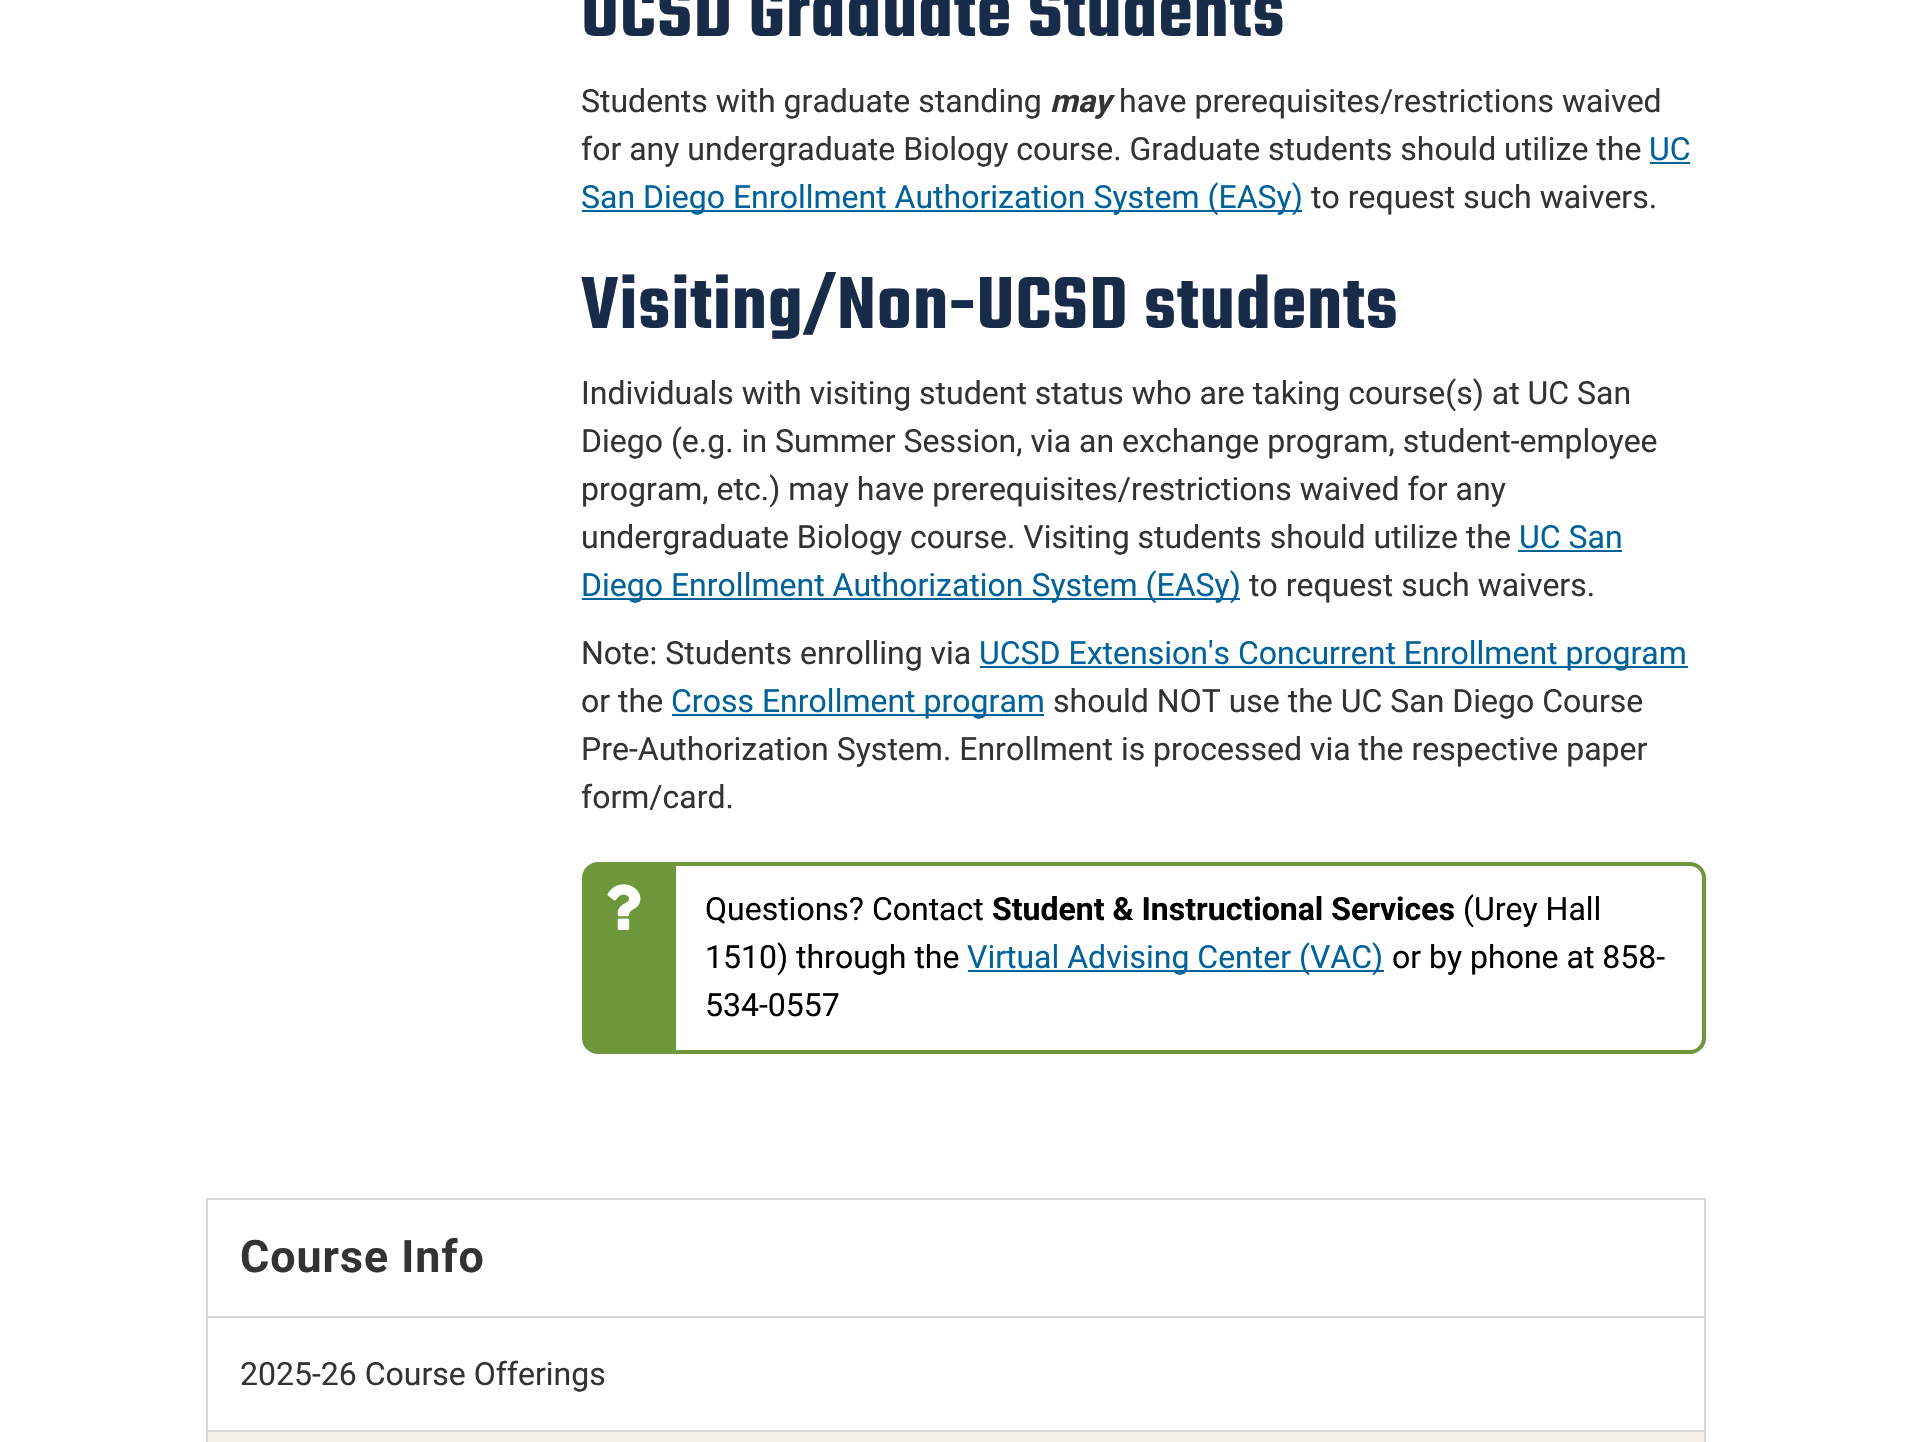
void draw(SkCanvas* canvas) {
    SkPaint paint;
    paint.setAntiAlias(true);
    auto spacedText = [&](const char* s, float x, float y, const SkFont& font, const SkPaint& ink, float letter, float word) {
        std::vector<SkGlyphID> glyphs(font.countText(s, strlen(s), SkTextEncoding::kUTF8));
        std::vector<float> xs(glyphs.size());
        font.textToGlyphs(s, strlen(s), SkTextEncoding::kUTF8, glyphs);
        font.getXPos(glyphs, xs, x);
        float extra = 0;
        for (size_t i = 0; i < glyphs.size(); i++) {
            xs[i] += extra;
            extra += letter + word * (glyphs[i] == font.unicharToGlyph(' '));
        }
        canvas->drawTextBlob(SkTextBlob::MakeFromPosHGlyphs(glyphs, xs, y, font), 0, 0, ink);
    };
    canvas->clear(0xFFFFFFFF);
    SkFont font1(fontMgr->matchFamilyStyle("Teko", SkFontStyle(600, SkFontStyle::kNormal_Width, SkFontStyle::kUpright_Slant)), 80);
    font1.setSubpixel(true);
    paint.setColor(0xFF182B49);
    spacedText("UCSD Graduate Students", 581, 36, font1, paint, 1, 0);
    SkFont font2(fontMgr->matchFamilyStyle("Roboto", SkFontStyle::Normal()), 32);
    font2.setSubpixel(true);
    paint.setColor(0xFF333333);
    canvas->drawString("Students with graduate standing", 581, 112, font2, paint);
    SkFont font3(fontMgr->matchFamilyStyle("Roboto", SkFontStyle::BoldItalic()), 32);
    font3.setSubpixel(true);
    canvas->drawString("may", 1050, 112, font3, paint);
    canvas->drawString("have prerequisites/restrictions waived", 1119, 112, font2, paint);
    canvas->drawString("for any undergraduate Biology course. Graduate students should utilize the", 581, 160, font2, paint);
    paint.setColor(0xFF00629B);
    canvas->drawString("UC", 1649, 160, font2, paint);
    canvas->drawRect(SkRect::MakeXYWH(1650, 162, 40, 2), paint);
    canvas->drawRect(SkRect::MakeXYWH(582, 210, 720, 2), paint);
    canvas->drawString("San Diego Enrollment Authorization System (EASy)", 581, 208, font2, paint);
    paint.setColor(0xFF333333);
    canvas->drawString("to request such waivers.", 1311, 208, font2, paint);
    paint.setColor(0xFF182B49);
    spacedText("Visiting/Non-UCSD students", 581, 328, font1, paint, 1, 0);
    paint.setColor(0xFF333333);
    canvas->drawString("Individuals with visiting student status who are taking course(s) at UC San", 581, 404, font2, paint);
    canvas->drawString("Diego (e.g. in Summer Session, via an exchange program, student-employee", 581, 452, font2, paint);
    canvas->drawString("program, etc.) may have prerequisites/restrictions waived for any", 581, 500, font2, paint);
    canvas->drawString("undergraduate Biology course. Visiting students should utilize the", 581, 548, font2, paint);
    paint.setColor(0xFF00629B);
    canvas->drawString("UC San", 1519, 548, font2, paint);
    canvas->drawRect(SkRect::MakeXYWH(1518, 550, 104, 2), paint);
    canvas->drawRect(SkRect::MakeXYWH(582, 598, 658, 2), paint);
    canvas->drawString("Diego Enrollment Authorization System (EASy)", 581, 596, font2, paint);
    paint.setColor(0xFF333333);
    canvas->drawString("to request such waivers.", 1249, 596, font2, paint);
    canvas->drawString("Note: Students enrolling via", 581, 664, font2, paint);
    paint.setColor(0xFF00629B);
    canvas->drawRect(SkRect::MakeXYWH(980, 666, 708, 2), paint);
    canvas->drawString("UCSD Extension's Concurrent Enrollment program", 979, 664, font2, paint);
    paint.setColor(0xFF333333);
    canvas->drawString("or the", 581, 712, font2, paint);
    paint.setColor(0xFF00629B);
    canvas->drawRect(SkRect::MakeXYWH(672, 714, 372, 2), paint);
    canvas->drawString("Cross Enrollment program", 671, 712, font2, paint);
    paint.setColor(0xFF333333);
    canvas->drawString("should NOT use the UC San Diego Course", 1053, 712, font2, paint);
    canvas->drawString("Pre-Authorization System. Enrollment is processed via the respective paper", 581, 760, font2, paint);
    canvas->drawString("form/card.", 581, 808, font2, paint);
    paint.setStyle(SkPaint::kStroke_Style);
    paint.setStrokeWidth(4);
    paint.setColor(0xFF6E963B);
    canvas->drawRoundRect(SkRect::MakeXYWH(584, 864, 1120, 188), 14, 14, paint);
    paint.setStyle(SkPaint::kFill_Style);
    canvas->drawPath(SkPathBuilder().moveTo(592, 866).lineTo(676, 866).lineTo(676, 1050).lineTo(592, 1050).cubicTo(588.5f, 1050, 586, 1047.5f, 586, 1044).lineTo(586, 872).cubicTo(586, 868.5f, 588.5f, 866, 592, 866).close().detach(), paint);
    canvas->drawImageRect(SkImages::DeferredFromEncodedData(SkData::MakeFromFileName("img1.png")), SkRect::MakeXYWH(607, 884, 34, 46), SkSamplingOptions());
    paint.setColor(0xFF000000);
    canvas->drawString("Questions? Contact", 705, 920, font2, paint);
    SkFont font4(fontMgr->matchFamilyStyle("Roboto", SkFontStyle::Bold()), 32);
    font4.setSubpixel(true);
    canvas->drawString("Student & Instructional Services", 992, 920, font4, paint);
    canvas->drawString("(Urey Hall", 1463, 920, font2, paint);
    canvas->drawString("1510) through the", 705, 968, font2, paint);
    paint.setColor(0xFF00629B);
    canvas->drawRect(SkRect::MakeXYWH(968, 970, 416, 2), paint);
    canvas->drawString("Virtual Advising Center (VAC)", 967, 968, font2, paint);
    paint.setColor(0xFF000000);
    canvas->drawString("or by phone at 858-", 1392, 968, font2, paint);
    canvas->drawString("534-0557", 705, 1016, font2, paint);
    paint.setStyle(SkPaint::kStroke_Style);
    paint.setStrokeWidth(2);
    paint.setColor(0xFFD8D7D7);
    canvas->drawRect(SkRect::MakeXYWH(207, 1199, 1498, 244), paint);
    SkFont font5(fontMgr->matchFamilyStyle("Roboto", SkFontStyle::Bold()), 44.75f);
    font5.setSubpixel(true);
    paint.setStyle(SkPaint::kFill_Style);
    paint.setColor(0xFF333333);
    spacedText("Course Info", 240, 1272, font5, paint, 1, 0);
    paint.setColor(0xFFD8D7D7);
    canvas->drawRect(SkRect::MakeXYWH(208, 1316, 1496, 2), paint);
    paint.setColor(0xFF333333);
    canvas->drawString("2025-26 Course Offerings", 240, 1385, font2, paint);
    paint.setColor(0xFFF5F0E6);
    canvas->drawRect(SkRect::MakeXYWH(208, 1432, 1496, 10), paint);
    paint.setColor(0xFFD8D7D7);
    canvas->drawRect(SkRect::MakeXYWH(208, 1430, 1496, 2), paint);
}
